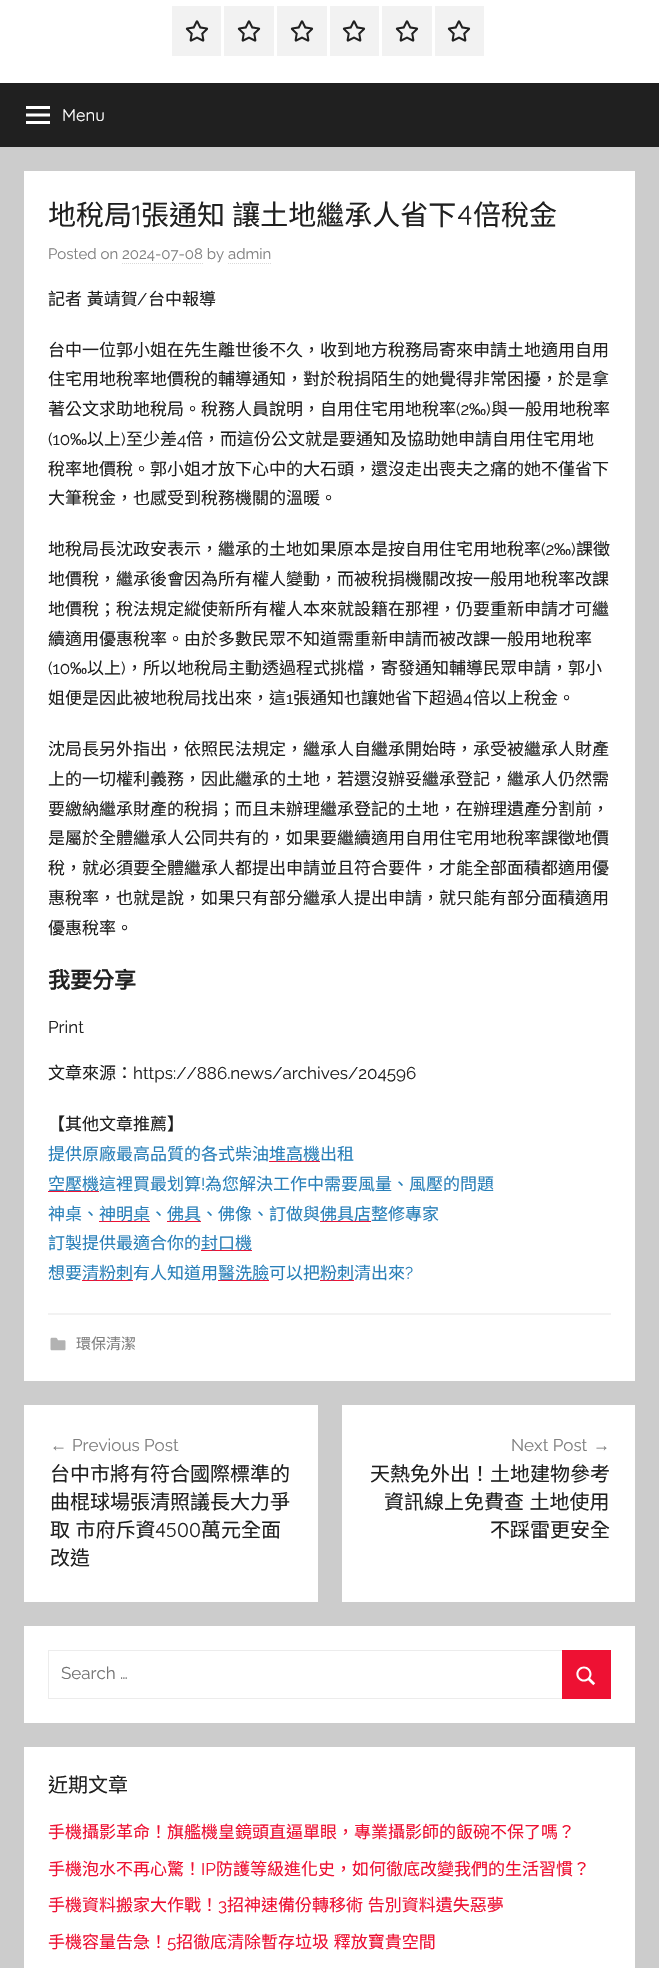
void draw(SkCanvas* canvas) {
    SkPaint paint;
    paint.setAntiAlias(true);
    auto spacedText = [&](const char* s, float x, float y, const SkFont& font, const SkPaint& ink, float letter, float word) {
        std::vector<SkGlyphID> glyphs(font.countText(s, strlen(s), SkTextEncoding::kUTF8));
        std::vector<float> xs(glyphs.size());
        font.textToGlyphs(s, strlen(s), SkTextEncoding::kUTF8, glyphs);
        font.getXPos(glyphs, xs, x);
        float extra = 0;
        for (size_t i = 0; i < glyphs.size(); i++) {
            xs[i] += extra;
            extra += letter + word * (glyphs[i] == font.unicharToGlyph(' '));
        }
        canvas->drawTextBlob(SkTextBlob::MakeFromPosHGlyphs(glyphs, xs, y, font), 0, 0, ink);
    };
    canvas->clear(0xFFCCCCCC);
    paint.setColor(0xFFFFFFFF);
    canvas->drawRect(SkRect::MakeXYWH(0, 0, 659, 83), paint);
    paint.setColor(0xFFF2F2F2);
    canvas->drawRect(SkRect::MakeXYWH(172, 6, 49, 50), paint);
    canvas->drawImageRect(SkImages::DeferredFromEncodedData(SkData::MakeFromFileName("img1.png")), SkRect::MakeXYWH(185, 20, 24, 22), SkSamplingOptions());
    canvas->drawRect(SkRect::MakeXYWH(224, 6, 50, 50), paint);
    canvas->drawImageRect(SkImages::DeferredFromEncodedData(SkData::MakeFromFileName("img2.png")), SkRect::MakeXYWH(237, 20, 24, 22), SkSamplingOptions());
    canvas->drawRect(SkRect::MakeXYWH(277, 6, 50, 50), paint);
    canvas->drawImageRect(SkImages::DeferredFromEncodedData(SkData::MakeFromFileName("img1.png")), SkRect::MakeXYWH(290, 20, 24, 22), SkSamplingOptions());
    canvas->drawRect(SkRect::MakeXYWH(330, 6, 49, 50), paint);
    canvas->drawImageRect(SkImages::DeferredFromEncodedData(SkData::MakeFromFileName("img1.png")), SkRect::MakeXYWH(342, 20, 24, 22), SkSamplingOptions());
    canvas->drawRect(SkRect::MakeXYWH(382, 6, 50, 50), paint);
    canvas->drawImageRect(SkImages::DeferredFromEncodedData(SkData::MakeFromFileName("img1.png")), SkRect::MakeXYWH(395, 20, 24, 22), SkSamplingOptions());
    canvas->drawRect(SkRect::MakeXYWH(435, 6, 49, 50), paint);
    canvas->drawImageRect(SkImages::DeferredFromEncodedData(SkData::MakeFromFileName("img1.png")), SkRect::MakeXYWH(447, 20, 24, 22), SkSamplingOptions());
    paint.setColor(0xFF202020);
    canvas->drawRect(SkRect::MakeXYWH(0, 83, 659, 64), paint);
    canvas->drawImageRect(SkImages::DeferredFromEncodedData(SkData::MakeFromFileName("img3.png")), SkRect::MakeXYWH(26, 106, 24, 18), SkSamplingOptions());
    SkFont font1(fontMgr->matchFamilyStyle("Quicksand", SkFontStyle(300, SkFontStyle::kNormal_Width, SkFontStyle::kUpright_Slant)), 17);
    font1.setSubpixel(true);
    paint.setColor(0xFFFFFFFF);
    canvas->drawString("Menu", 62, 121, font1, paint);
    canvas->drawRect(SkRect::MakeXYWH(24, 171, 611, 1210), paint);
    SkFont font2(fontMgr->matchFamilyStyle("Noto Sans CJK TC", SkFontStyle::Normal()), 28);
    font2.setSubpixel(true);
    paint.setColor(0xFF202020);
    canvas->drawString("地稅局", 48, 225, font2, paint);
    SkFont font3(fontMgr->matchFamilyStyle("Quicksand", SkFontStyle(300, SkFontStyle::kNormal_Width, SkFontStyle::kUpright_Slant)), 28);
    font3.setSubpixel(true);
    canvas->drawString("1", 132, 225, font3, paint);
    spacedText("張通知 讓土地繼承人省下", 141, 225, font2, paint, 0, 1);
    canvas->drawString("4", 457, 225, font3, paint);
    canvas->drawString("倍稅金", 473, 225, font2, paint);
    SkFont font4(fontMgr->matchFamilyStyle("Raleway", SkFontStyle(100, SkFontStyle::kNormal_Width, SkFontStyle::kUpright_Slant)), 15);
    font4.setSubpixel(true);
    paint.setColor(0xFF808080);
    canvas->drawString("Posted on 2024-07-08 by admin", 48, 259, font4, paint);
    paint.setStyle(SkPaint::kStroke_Style);
    paint.setStrokeWidth(1);
    paint.setColor(0xFFD9D9D9);
    paint.setPathEffect(SkDashPathEffect::Make({{1, 1}}, 0));
    canvas->drawPath(SkPathBuilder().moveTo(122, 263.5f).lineTo(203, 263.5f).detach(), paint);
    paint.setPathEffect(nullptr);
    paint.setPathEffect(SkDashPathEffect::Make({{1, 1}}, 0));
    canvas->drawPath(SkPathBuilder().moveTo(228, 263.5f).lineTo(271, 263.5f).detach(), paint);
    paint.setPathEffect(nullptr);
    SkFont font5(fontMgr->matchFamilyStyle("Noto Sans CJK TC", SkFontStyle::Normal()), 17);
    font5.setSubpixel(true);
    paint.setStyle(SkPaint::kFill_Style);
    paint.setColor(0xFF202020);
    spacedText("記者 黃靖賀", 48, 305, font5, paint, 0, 1);
    SkFont font6(fontMgr->matchFamilyStyle("Raleway", SkFontStyle(100, SkFontStyle::kNormal_Width, SkFontStyle::kUpright_Slant)), 17);
    font6.setSubpixel(true);
    canvas->drawString("/", 137, 305, font6, paint);
    canvas->drawString("台中報導", 148, 305, font5, paint);
    canvas->drawString("台中一位郭小姐在先生離世後不久，收到地方稅務局寄來申請土地適用自用", 48, 356, font5, paint);
    canvas->drawString("住宅用地稅率地價稅的輔導通知，對於稅捐陌生的她覺得非常困擾，於是拿", 48, 385, font5, paint);
    canvas->drawString("著公文求助地稅局。稅務人員說明，自用住宅用地稅率", 48, 415, font5, paint);
    canvas->drawString("(2", 456, 415, font6, paint);
    SkFont font7(fontMgr->matchFamilyStyle("Liberation Sans", SkFontStyle::Normal()), 17);
    font7.setSubpixel(true);
    canvas->drawString("‰", 469, 415, font7, paint);
    canvas->drawString(")", 486, 415, font6, paint);
    canvas->drawString("與一般用地稅率", 491, 415, font5, paint);
    canvas->drawString("(10", 48, 445, font6, paint);
    canvas->drawString("‰", 70, 445, font7, paint);
    canvas->drawString("以上", 87, 445, font5, paint);
    canvas->drawString(")", 121, 445, font6, paint);
    canvas->drawString("至少差", 126, 445, font5, paint);
    canvas->drawString("4", 177, 445, font6, paint);
    canvas->drawString("倍，而這份公文就是要通知及協助她申請自用住宅用地", 186, 445, font5, paint);
    canvas->drawString("稅率地價稅。郭小姐才放下心中的大石頭，還沒走出喪夫之痛的她不僅省下", 48, 475, font5, paint);
    canvas->drawString("大筆稅金，也感受到稅務機關的溫暖。", 48, 504, font5, paint);
    canvas->drawString("地稅局長沈政安表示，繼承的土地如果原本是按自用住宅用地稅率", 48, 555, font5, paint);
    canvas->drawString("(2", 541, 555, font6, paint);
    canvas->drawString("‰", 554, 555, font7, paint);
    canvas->drawString(")", 571, 555, font6, paint);
    canvas->drawString("課徵", 576, 555, font5, paint);
    canvas->drawString("地價稅，繼承後會因為所有權人變動，而被稅捐機關改按一般用地稅率改課", 48, 585, font5, paint);
    canvas->drawString("地價稅；稅法規定縱使新所有權人本來就設籍在那裡，仍要重新申請才可繼", 48, 615, font5, paint);
    canvas->drawString("續適用優惠稅率。由於多數民眾不知道需重新申請而被改課一般用地稅率", 48, 645, font5, paint);
    canvas->drawString("(10", 48, 674, font6, paint);
    canvas->drawString("‰", 70, 674, font7, paint);
    canvas->drawString("以上", 87, 674, font5, paint);
    canvas->drawString(")", 121, 674, font6, paint);
    canvas->drawString("，所以地稅局主動透過程式挑檔，寄發通知輔導民眾申請，郭小", 126, 674, font5, paint);
    canvas->drawString("姐便是因此被地稅局找出來，這", 48, 704, font5, paint);
    canvas->drawString("1", 286, 704, font6, paint);
    canvas->drawString("張通知也讓她省下超過", 293, 704, font5, paint);
    canvas->drawString("4", 463, 704, font6, paint);
    canvas->drawString("倍以上稅金。", 473, 704, font5, paint);
    canvas->drawString("沈局長另外指出，依照民法規定，繼承人自繼承開始時，承受被繼承人財產", 48, 755, font5, paint);
    canvas->drawString("上的一切權利義務，因此繼承的土地，若還沒辦妥繼承登記，繼承人仍然需", 48, 785, font5, paint);
    canvas->drawString("要繳納繼承財產的稅捐；而且未辦理繼承登記的土地，在辦理遺產分割前，", 48, 815, font5, paint);
    canvas->drawString("是屬於全體繼承人公同共有的，如果要繼續適用自用住宅用地稅率課徵地價", 48, 844, font5, paint);
    canvas->drawString("稅，就必須要全體繼承人都提出申請並且符合要件，才能全部面積都適用優", 48, 874, font5, paint);
    canvas->drawString("惠稅率，也就是說，如果只有部分繼承人提出申請，就只能有部分面積適用", 48, 904, font5, paint);
    canvas->drawString("優惠稅率。", 48, 934, font5, paint);
    SkFont font8(fontMgr->matchFamilyStyle("Noto Sans CJK TC", SkFontStyle::Bold()), 22);
    font8.setSubpixel(true);
    canvas->drawString("我要分享", 48, 988, font8, paint);
    canvas->drawString("Print", 48, 1033, font6, paint);
    canvas->drawString("文章來源：", 48, 1079, font5, paint);
    canvas->drawString("https://886.news/archives/204596", 133, 1079, font6, paint);
    canvas->drawString("【其他文章推薦】", 48, 1130, font5, paint);
    paint.setColor(0xFF2980B9);
    canvas->drawString("提供原廠最高品質的各式柴油", 48, 1160, font5, paint);
    paint.setColor(0xFFEE1133);
    canvas->drawRect(SkRect::MakeXYWH(269, 1161, 51, 1), paint);
    paint.setColor(0xFF2980B9);
    canvas->drawString("堆高機出租", 269, 1160, font5, paint);
    paint.setColor(0xFFEE1133);
    canvas->drawRect(SkRect::MakeXYWH(48, 1191, 51, 1), paint);
    paint.setColor(0xFF2980B9);
    canvas->drawString("空壓機這裡買最划算", 48, 1190, font5, paint);
    canvas->drawString("!", 201, 1190, font6, paint);
    canvas->drawString("為您解決工作中需要風量、風壓的問題", 205, 1190, font5, paint);
    canvas->drawString("神桌、", 48, 1220, font5, paint);
    paint.setColor(0xFFEE1133);
    canvas->drawRect(SkRect::MakeXYWH(99, 1221, 51, 1), paint);
    paint.setColor(0xFF2980B9);
    canvas->drawString("神明桌、", 99, 1220, font5, paint);
    paint.setColor(0xFFEE1133);
    canvas->drawRect(SkRect::MakeXYWH(167, 1221, 34, 1), paint);
    paint.setColor(0xFF2980B9);
    canvas->drawString("佛具、佛像、訂做與", 167, 1220, font5, paint);
    paint.setColor(0xFFEE1133);
    canvas->drawRect(SkRect::MakeXYWH(320, 1221, 51, 1), paint);
    paint.setColor(0xFF2980B9);
    canvas->drawString("佛具店整修專家", 320, 1220, font5, paint);
    canvas->drawString("訂製提供最適合你的", 48, 1249, font5, paint);
    paint.setColor(0xFFEE1133);
    canvas->drawRect(SkRect::MakeXYWH(201, 1250, 51, 1), paint);
    paint.setColor(0xFF2980B9);
    canvas->drawString("封口機", 201, 1249, font5, paint);
    canvas->drawString("想要", 48, 1279, font5, paint);
    paint.setColor(0xFFEE1133);
    canvas->drawRect(SkRect::MakeXYWH(82, 1280, 51, 1), paint);
    paint.setColor(0xFF2980B9);
    canvas->drawString("清粉刺有人知道用", 82, 1279, font5, paint);
    paint.setColor(0xFFEE1133);
    canvas->drawRect(SkRect::MakeXYWH(218, 1280, 51, 1), paint);
    paint.setColor(0xFF2980B9);
    canvas->drawString("醫洗臉可以把", 218, 1279, font5, paint);
    paint.setColor(0xFFEE1133);
    canvas->drawRect(SkRect::MakeXYWH(320, 1280, 34, 1), paint);
    paint.setColor(0xFF2980B9);
    canvas->drawString("粉刺清出來", 320, 1279, font5, paint);
    canvas->drawString("?", 405, 1279, font6, paint);
    paint.setColor(0xFFF2F2F2);
    canvas->drawRect(SkRect::MakeXYWH(48, 1313, 563, 2), paint);
    canvas->drawImageRect(SkImages::DeferredFromEncodedData(SkData::MakeFromFileName("img4.png")), SkRect::MakeXYWH(50, 1337, 16, 14), SkSamplingOptions());
    SkFont font9(fontMgr->matchFamilyStyle("Noto Sans CJK TC", SkFontStyle::Normal()), 15);
    font9.setSubpixel(true);
    paint.setColor(0xFF808080);
    canvas->drawString("環保清潔", 76, 1349, font9, paint);
    paint.setColor(0xFFFFFFFF);
    canvas->drawRect(SkRect::MakeXYWH(24, 1405, 294, 197), paint);
    paint.setColor(0xFF808080);
    canvas->drawString("←", 50, 1451, font7, paint);
    canvas->drawString("Previous Post", 72, 1451, font6, paint);
    SkFont font10(fontMgr->matchFamilyStyle("Noto Sans CJK TC", SkFontStyle::Normal()), 20);
    font10.setSubpixel(true);
    paint.setColor(0xFF202020);
    canvas->drawString("台中市將有符合國際標準的", 50, 1481, font10, paint);
    canvas->drawString("曲棍球場張清照議長大力爭", 50, 1509, font10, paint);
    spacedText("取 市府斥資", 50, 1537, font10, paint, 0, 1);
    SkFont font11(fontMgr->matchFamilyStyle("Quicksand", SkFontStyle(300, SkFontStyle::kNormal_Width, SkFontStyle::kUpright_Slant)), 20);
    font11.setSubpixel(true);
    canvas->drawString("4500", 155, 1537, font11, paint);
    canvas->drawString("萬元全面", 201, 1537, font10, paint);
    canvas->drawString("改造", 50, 1565, font10, paint);
    paint.setColor(0xFFFFFFFF);
    canvas->drawRect(SkRect::MakeXYWH(342, 1405, 293, 197), paint);
    paint.setColor(0xFF808080);
    canvas->drawString("Next Post", 511, 1451, font6, paint);
    canvas->drawString("→", 593, 1451, font7, paint);
    paint.setColor(0xFF202020);
    canvas->drawString("天熱免外出！土地建物參考", 370, 1481, font10, paint);
    spacedText("資訊線上免費查 土地使用", 384, 1509, font10, paint, 0, 1);
    canvas->drawString("不踩雷更安全", 490, 1537, font10, paint);
    paint.setColor(0xFFFFFFFF);
    canvas->drawRect(SkRect::MakeXYWH(24, 1626, 611, 97), paint);
    paint.setStyle(SkPaint::kStroke_Style);
    paint.setColor(0xFFECECEC);
    canvas->drawRect(SkRect::MakeXYWH(48.5f, 1650.5f, 562, 48), paint);
    paint.setStyle(SkPaint::kFill_Style);
    paint.setColor(0xFF757575);
    canvas->drawString("Search …", 61, 1679, font6, paint);
    paint.setColor(0xFFEE1133);
    canvas->drawRect(SkRect::MakeXYWH(562, 1650, 49, 49), paint);
    canvas->drawImageRect(SkImages::DeferredFromEncodedData(SkData::MakeFromFileName("img5.png")), SkRect::MakeXYWH(576, 1666, 20, 20), SkSamplingOptions());
    paint.setColor(0xFFFFFFFF);
    canvas->drawRect(SkRect::MakeXYWH(24, 1747, 611, 221), paint);
    paint.setColor(0xFF202020);
    canvas->drawString("近期文章", 48, 1792, font10, paint);
    paint.setColor(0xFFEE1133);
    canvas->drawString("手機攝影革命！旗艦機皇鏡頭直逼單眼，專業攝影師的飯碗不保了嗎？", 48, 1838, font5, paint);
    canvas->drawString("手機泡水不再心驚！", 48, 1875, font5, paint);
    canvas->drawString("IP", 201, 1875, font6, paint);
    canvas->drawString("防護等級進化史，如何徹底改變我們的生活習慣？", 216, 1875, font5, paint);
    canvas->drawString("手機資料搬家大作戰！", 48, 1911, font5, paint);
    canvas->drawString("3", 218, 1911, font6, paint);
    spacedText("招神速備份轉移術 告別資料遺失惡夢", 227, 1911, font5, paint, 0, 1);
    canvas->drawString("手機容量告急！", 48, 1948, font5, paint);
    canvas->drawString("5", 167, 1948, font6, paint);
    spacedText("招徹底清除暫存垃圾 釋放寶貴空間", 176, 1948, font5, paint, 0, 1);
}
